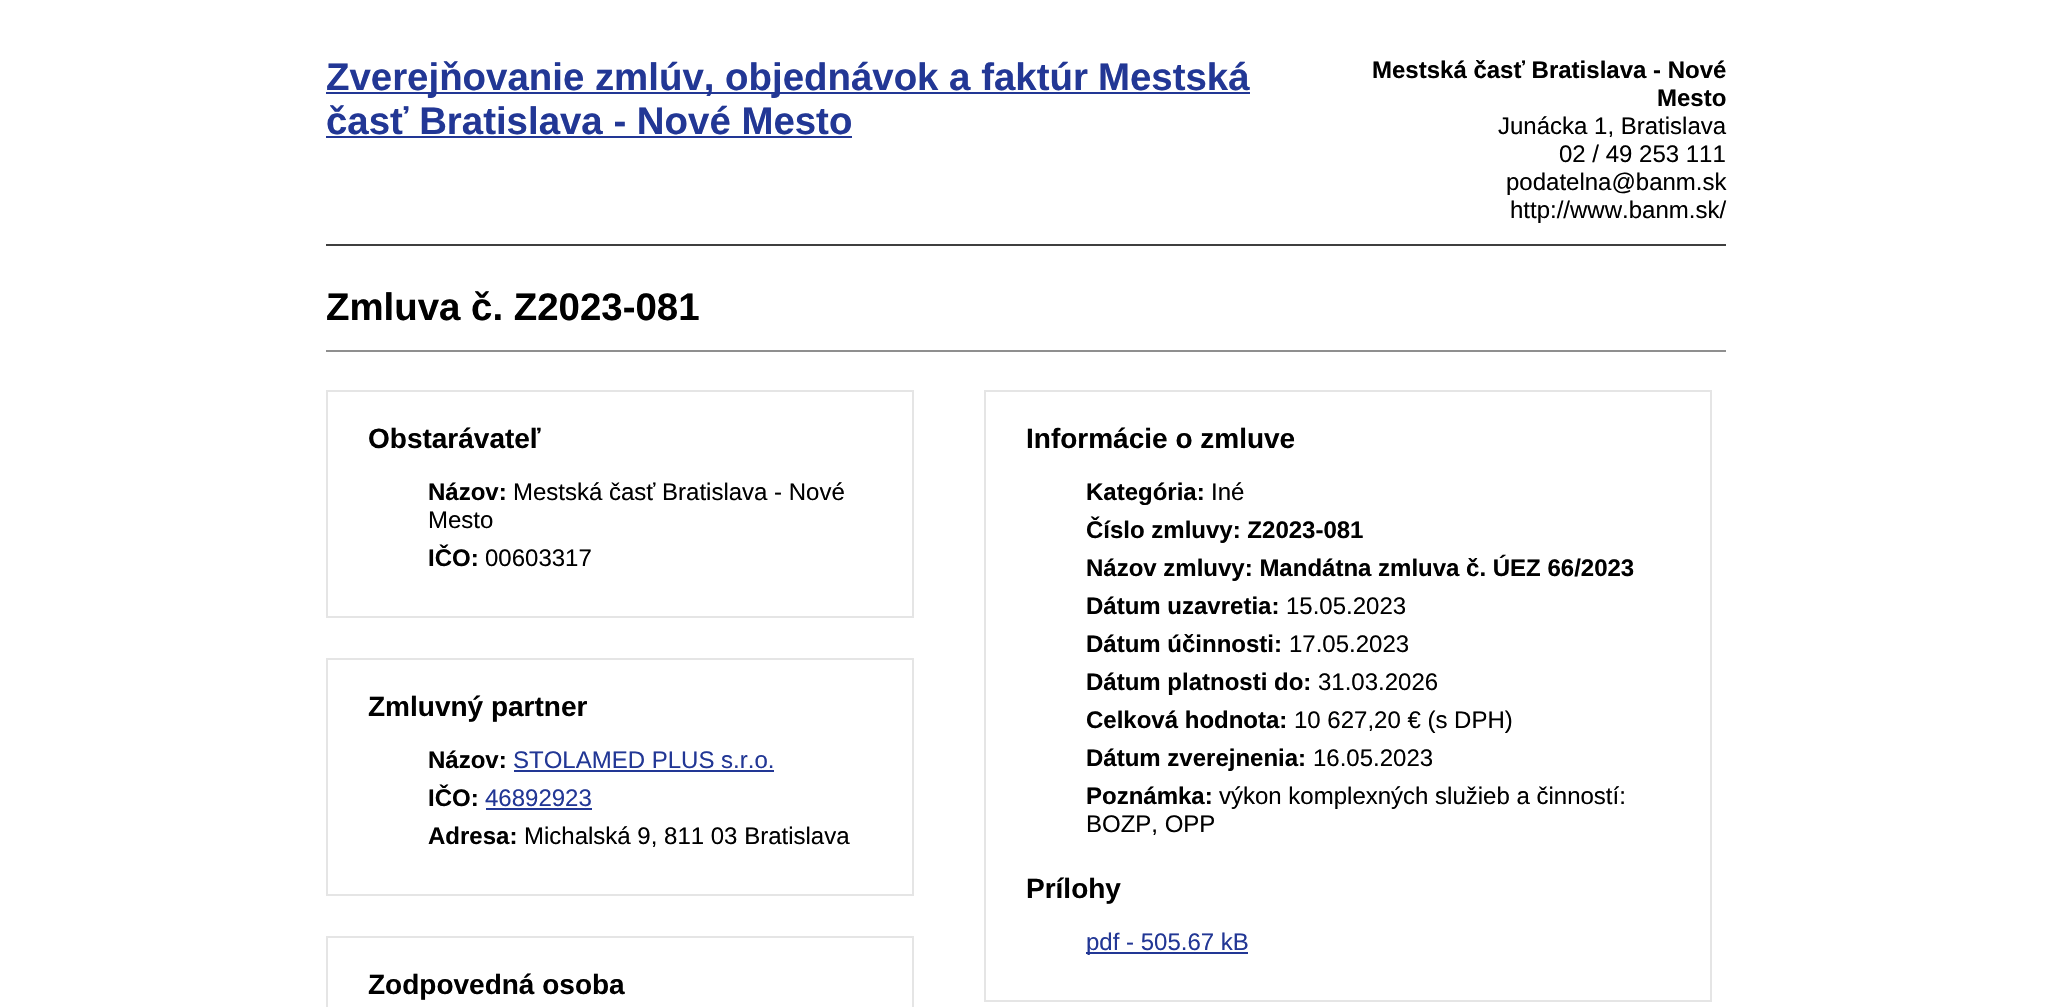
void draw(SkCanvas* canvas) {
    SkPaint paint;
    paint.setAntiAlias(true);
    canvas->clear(0xFFFFFFFF);
    paint.setColor(0xFF3F3F3F);
    canvas->drawRect(SkRect::MakeXYWH(326, 244, 1400, 2), paint);
    paint.setColor(0xFF223795);
    canvas->drawRect(SkRect::MakeXYWH(326, 92, 924, 2), paint);
    SkFont font1(fontMgr->matchFamilyStyle("Liberation Sans", SkFontStyle::Bold()), 38.4f);
    font1.setSubpixel(true);
    canvas->drawString("Zverejňovanie zmlúv, objednávok a faktúr", 326, 90, font1, paint);
    canvas->drawString("Mestská", 1098, 90, font1, paint);
    canvas->drawString("časť Bratislava - Nové Mesto", 326, 134, font1, paint);
    canvas->drawRect(SkRect::MakeXYWH(326, 136, 526, 2), paint);
    SkFont font2(fontMgr->matchFamilyStyle("Liberation Sans", SkFontStyle::Bold()), 24);
    font2.setSubpixel(true);
    paint.setColor(0xFF000000);
    canvas->drawString("Mestská časť Bratislava - Nové", 1372, 78, font2, paint);
    canvas->drawString("Mesto", 1657, 106, font2, paint);
    SkFont font3(fontMgr->matchFamilyStyle("Liberation Sans", SkFontStyle::Normal()), 24);
    font3.setSubpixel(true);
    canvas->drawString("Junácka 1, Bratislava", 1498, 134, font3, paint);
    canvas->drawString("02 / 49 253 111", 1559, 162, font3, paint);
    canvas->drawString("podatelna@banm.sk", 1506, 190, font3, paint);
    canvas->drawString("http://www.banm.sk/", 1510, 218, font3, paint);
    canvas->drawString("Zmluva č. Z2023-081", 326, 320, font1, paint);
    paint.setStyle(SkPaint::kStroke_Style);
    paint.setStrokeWidth(2);
    paint.setColor(0xFFE5E5E5);
    canvas->drawRect(SkRect::MakeXYWH(327, 391, 586, 226), paint);
    SkFont font4(fontMgr->matchFamilyStyle("Liberation Sans", SkFontStyle::Bold()), 28);
    font4.setSubpixel(true);
    paint.setStyle(SkPaint::kFill_Style);
    paint.setColor(0xFF000000);
    canvas->drawString("Obstarávateľ", 368, 448, font4, paint);
    canvas->drawString("Názov:", 428, 500, font2, paint);
    canvas->drawString("Mestská časť Bratislava - Nové", 513, 500, font3, paint);
    canvas->drawString("Mesto", 428, 528, font3, paint);
    canvas->drawString("IČO:", 428, 566, font2, paint);
    canvas->drawString("00603317", 485, 566, font3, paint);
    paint.setStyle(SkPaint::kStroke_Style);
    paint.setColor(0xFFE5E5E5);
    canvas->drawRect(SkRect::MakeXYWH(327, 659, 586, 236), paint);
    paint.setStyle(SkPaint::kFill_Style);
    paint.setColor(0xFF000000);
    canvas->drawString("Zmluvný partner", 368, 716, font4, paint);
    canvas->drawString("Názov:", 428, 768, font2, paint);
    paint.setColor(0xFF223795);
    canvas->drawString("STOLAMED PLUS s.r.o.", 513, 768, font3, paint);
    canvas->drawRect(SkRect::MakeXYWH(514, 770, 260, 2), paint);
    paint.setColor(0xFF000000);
    canvas->drawString("IČO:", 428, 806, font2, paint);
    paint.setColor(0xFF223795);
    canvas->drawString("46892923", 485, 806, font3, paint);
    canvas->drawRect(SkRect::MakeXYWH(486, 808, 106, 2), paint);
    paint.setColor(0xFF000000);
    canvas->drawString("Adresa:", 428, 844, font2, paint);
    canvas->drawString("Michalská 9, 811 03 Bratislava", 524, 844, font3, paint);
    paint.setStyle(SkPaint::kStroke_Style);
    paint.setColor(0xFFE5E5E5);
    canvas->drawRect(SkRect::MakeXYWH(327, 937, 586, 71), paint);
    paint.setStyle(SkPaint::kFill_Style);
    paint.setColor(0xFF000000);
    canvas->drawString("Zodpovedná osoba", 368, 994, font4, paint);
    paint.setStyle(SkPaint::kStroke_Style);
    paint.setColor(0xFFE5E5E5);
    canvas->drawRect(SkRect::MakeXYWH(985, 391, 726, 610), paint);
    paint.setStyle(SkPaint::kFill_Style);
    paint.setColor(0xFF000000);
    canvas->drawString("Informácie o zmluve", 1026, 448, font4, paint);
    canvas->drawString("Kategória:", 1086, 500, font2, paint);
    canvas->drawString("Iné", 1211, 500, font3, paint);
    canvas->drawString("Číslo zmluvy: Z2023-081", 1086, 538, font2, paint);
    canvas->drawString("Názov zmluvy: Mandátna zmluva č. ÚEZ 66/2023", 1086, 576, font2, paint);
    canvas->drawString("Dátum uzavretia:", 1086, 614, font2, paint);
    canvas->drawString("15.05.2023", 1286, 614, font3, paint);
    canvas->drawString("Dátum účinnosti:", 1086, 652, font2, paint);
    canvas->drawString("17.05.2023", 1289, 652, font3, paint);
    canvas->drawString("Dátum platnosti do:", 1086, 690, font2, paint);
    canvas->drawString("31.03.2026", 1318, 690, font3, paint);
    canvas->drawString("Celková hodnota:", 1086, 728, font2, paint);
    canvas->drawString("10 627,20 € (s DPH)", 1294, 728, font3, paint);
    canvas->drawString("Dátum zverejnenia:", 1086, 766, font2, paint);
    canvas->drawString("16.05.2023", 1313, 766, font3, paint);
    canvas->drawString("Poznámka:", 1086, 804, font2, paint);
    canvas->drawString("výkon komplexných služieb a činností:", 1219, 804, font3, paint);
    canvas->drawString("BOZP, OPP", 1086, 832, font3, paint);
    canvas->drawString("Prílohy", 1026, 898, font4, paint);
    paint.setColor(0xFF223795);
    canvas->drawRect(SkRect::MakeXYWH(1086, 952, 162, 2), paint);
    canvas->drawString("pdf - 505.67 kB", 1086, 950, font3, paint);
    paint.setColor(0xFF8F8F8F);
    canvas->drawRect(SkRect::MakeXYWH(326, 350, 1400, 2), paint);
}
